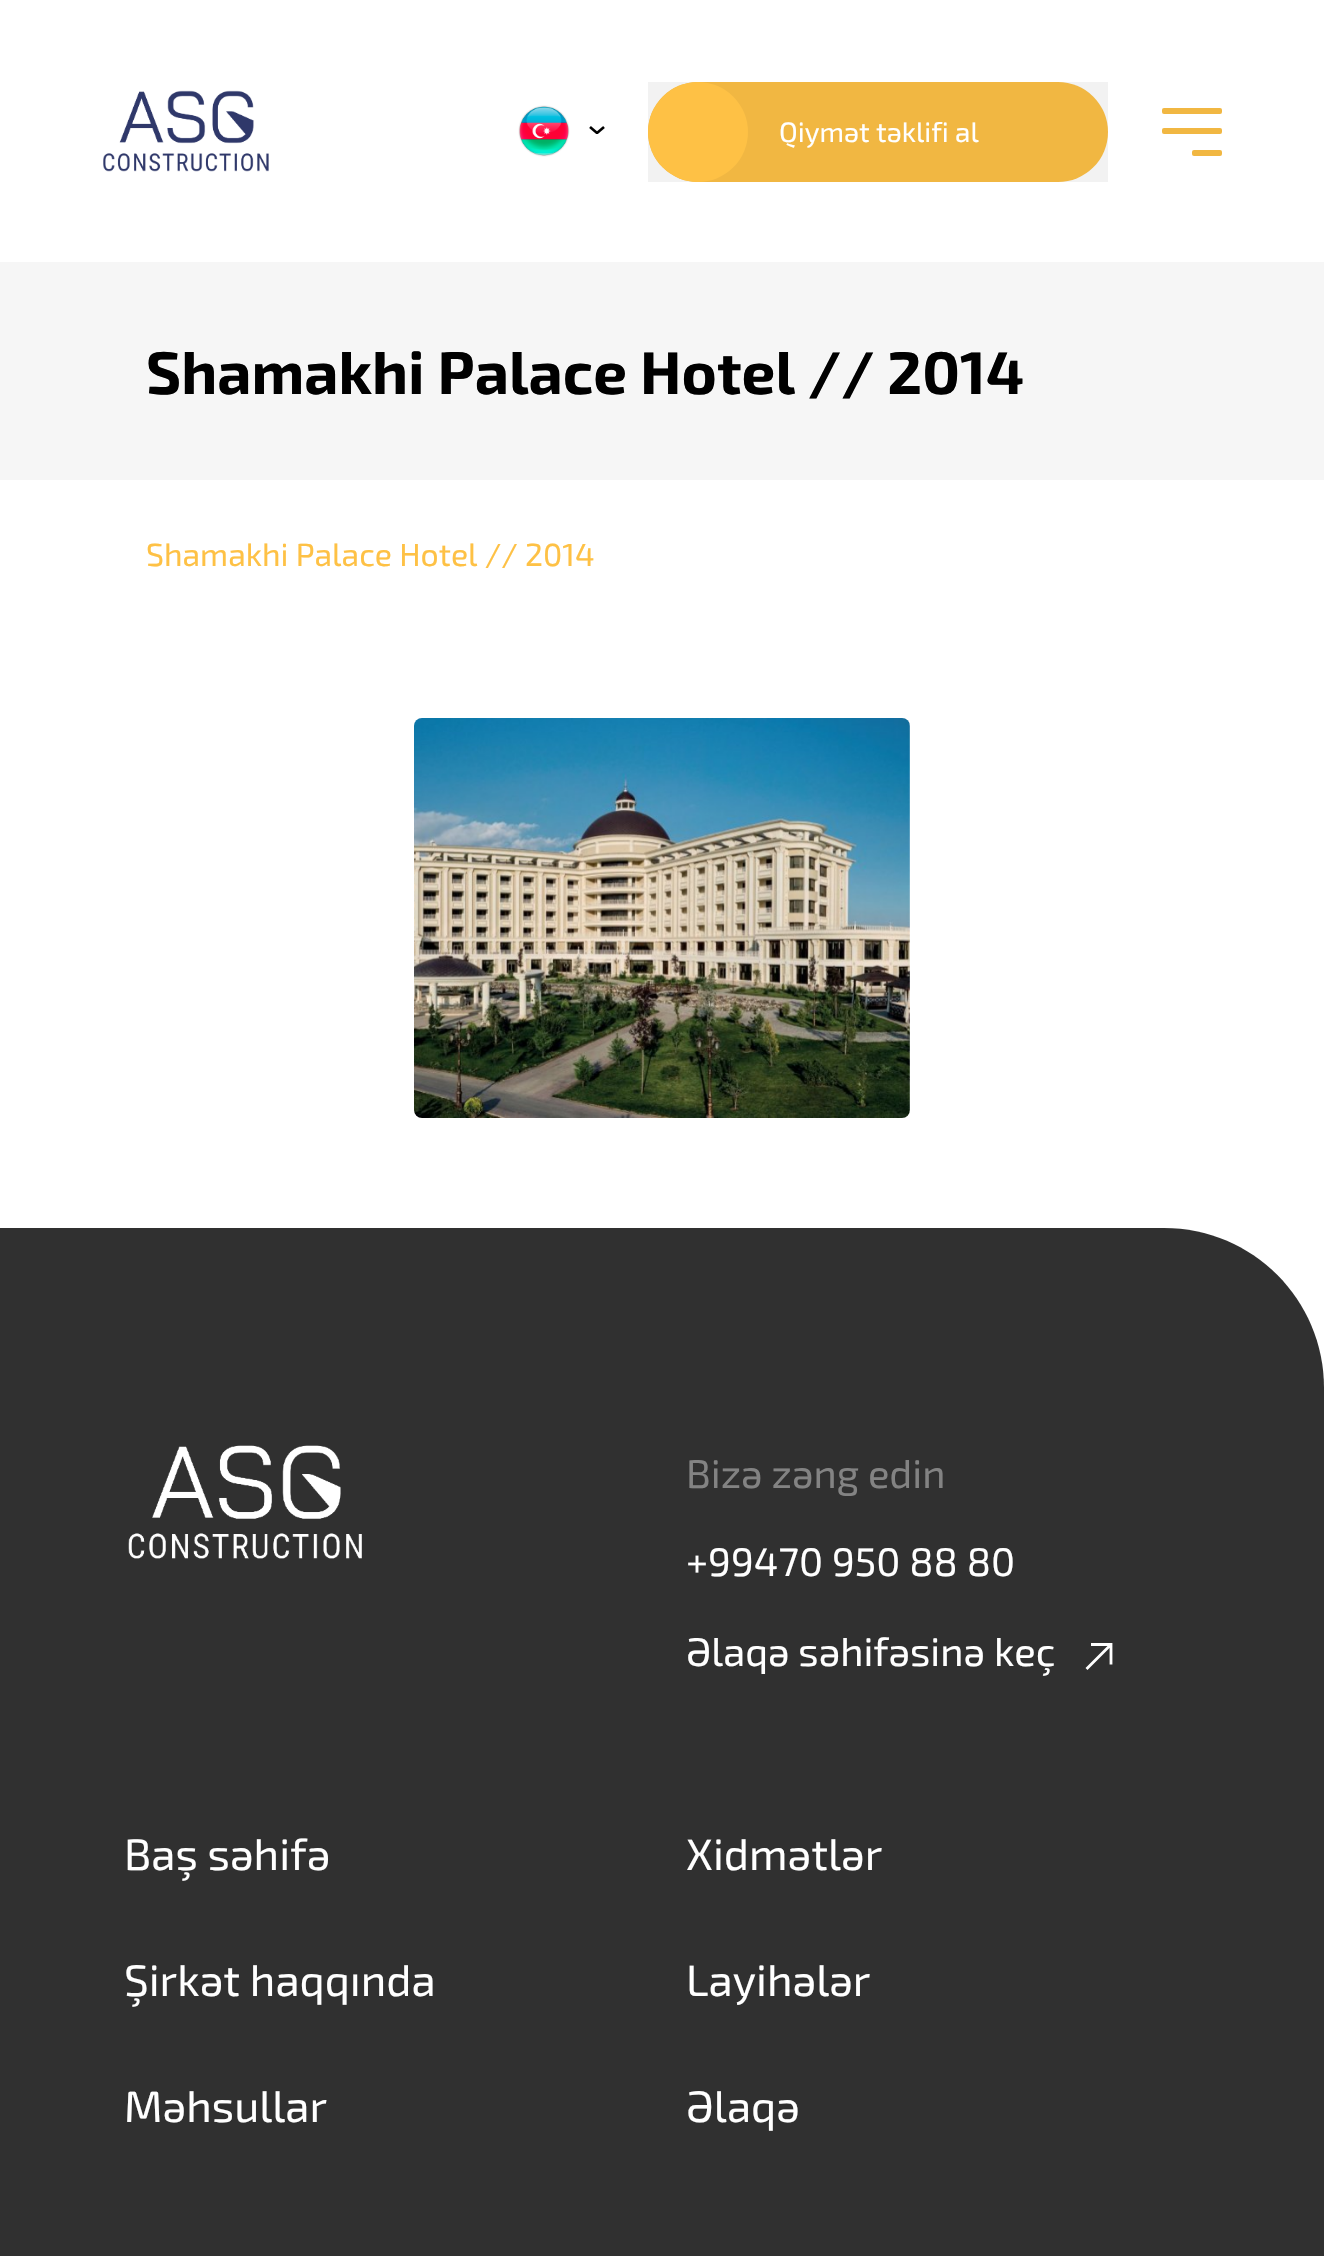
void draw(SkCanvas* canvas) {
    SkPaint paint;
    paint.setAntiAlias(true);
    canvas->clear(0xFFFFFFFF);
    canvas->drawImageRect(SkImages::DeferredFromEncodedData(SkData::MakeFromFileName("img1.png")), SkRect::MakeXYWH(103, 90, 166, 82), SkSamplingOptions());
    canvas->drawImageRect(SkImages::DeferredFromEncodedData(SkData::MakeFromFileName("img2.png")), SkRect::MakeXYWH(518, 105, 52, 52), SkSamplingOptions());
    canvas->drawImageRect(SkImages::DeferredFromEncodedData(SkData::MakeFromFileName("img3.png")), SkRect::MakeXYWH(589, 126, 16, 8), SkSamplingOptions());
    paint.setColor(0xFFFEC145);
    canvas->drawRoundRect(SkRect::MakeXYWH(648, 82, 460, 100), 50, 50, paint);
    paint.setColor(0x0D000000);
    canvas->drawRect(SkRect::MakeXYWH(648, 82, 460, 100), paint);
    paint.setColor(0xFFFEC145);
    canvas->drawCircle(698, 132, 50, paint);
    SkFont font1(fontMgr->matchFamilyStyle("Exo 2", SkFontStyle::Normal()), 28);
    font1.setSubpixel(true);
    paint.setColor(0xFFFFFFFF);
    canvas->drawString("Qiymət təklifi al", 779, 142, font1, paint);
    paint.setColor(0xFFF1B742);
    canvas->drawRoundRect(SkRect::MakeXYWH(1162, 108, 60, 6), 2, 2, paint);
    canvas->drawRoundRect(SkRect::MakeXYWH(1162, 128, 60, 6), 2, 2, paint);
    canvas->drawRoundRect(SkRect::MakeXYWH(1192, 150, 30, 6), 2, 2, paint);
    paint.setColor(0xFFF6F6F6);
    canvas->drawRect(SkRect::MakeXYWH(0, 262, 1324, 218), paint);
    SkFont font2(fontMgr->matchFamilyStyle("Exo 2", SkFontStyle::Bold()), 60);
    font2.setSubpixel(true);
    paint.setColor(0xFF000000);
    canvas->drawString("Shamakhi Palace Hotel // 2014", 146, 394, font2, paint);
    SkFont font3(fontMgr->matchFamilyStyle("Exo 2", SkFontStyle::Normal()), 32);
    font3.setSubpixel(true);
    paint.setColor(0xFFFEC145);
    canvas->drawString("Shamakhi Palace Hotel // 2014", 146, 566, font3, paint);
    canvas->drawImageRect(SkImages::DeferredFromEncodedData(SkData::MakeFromFileName("img4.png")), SkRect::MakeXYWH(414, 718, 496, 400), SkSamplingOptions());
    paint.setColor(0xFF303030);
    canvas->drawPath(SkPathBuilder().moveTo(0, 1228).lineTo(1164, 1228).cubicTo(1252.5f, 1228, 1324, 1299.5f, 1324, 1388).lineTo(1324, 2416).lineTo(0, 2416).close().detach(), paint);
    canvas->drawImageRect(SkImages::DeferredFromEncodedData(SkData::MakeFromFileName("img5.png")), SkRect::MakeXYWH(128, 1445, 234, 114), SkSamplingOptions());
    SkFont font4(fontMgr->matchFamilyStyle("Exo 2", SkFontStyle::Normal()), 40);
    font4.setSubpixel(true);
    paint.setColor(0xFF838383);
    canvas->drawString("Bizə zəng edin", 686, 1488, font4, paint);
    paint.setColor(0xFFFFFFFF);
    canvas->drawString("+99470 950 88 80", 686, 1576, font4, paint);
    canvas->drawString("Əlaqə səhifəsinə keç", 686, 1666, font4, paint);
    paint.setStyle(SkPaint::kStroke_Style);
    paint.setStrokeWidth(2.8f);
    canvas->drawPath(SkPathBuilder().moveTo(1086.5f, 1669).lineTo(1111, 1644.5f).moveTo(1091, 1644.5f).lineTo(1111, 1644.5f).lineTo(1111, 1664.5f).detach(), paint);
    SkFont font5(fontMgr->matchFamilyStyle("Exo 2", SkFontStyle::Normal()), 44);
    font5.setSubpixel(true);
    paint.setStyle(SkPaint::kFill_Style);
    canvas->drawString("Baş səhifə", 124, 1870, font5, paint);
    canvas->drawString("Şirkət haqqında", 124, 1996, font5, paint);
    canvas->drawString("Məhsullar", 124, 2122, font5, paint);
    canvas->drawString("Xidmətlər", 686, 1870, font5, paint);
    canvas->drawString("Layihələr", 686, 1996, font5, paint);
    canvas->drawString("Əlaqə", 686, 2122, font5, paint);
}
